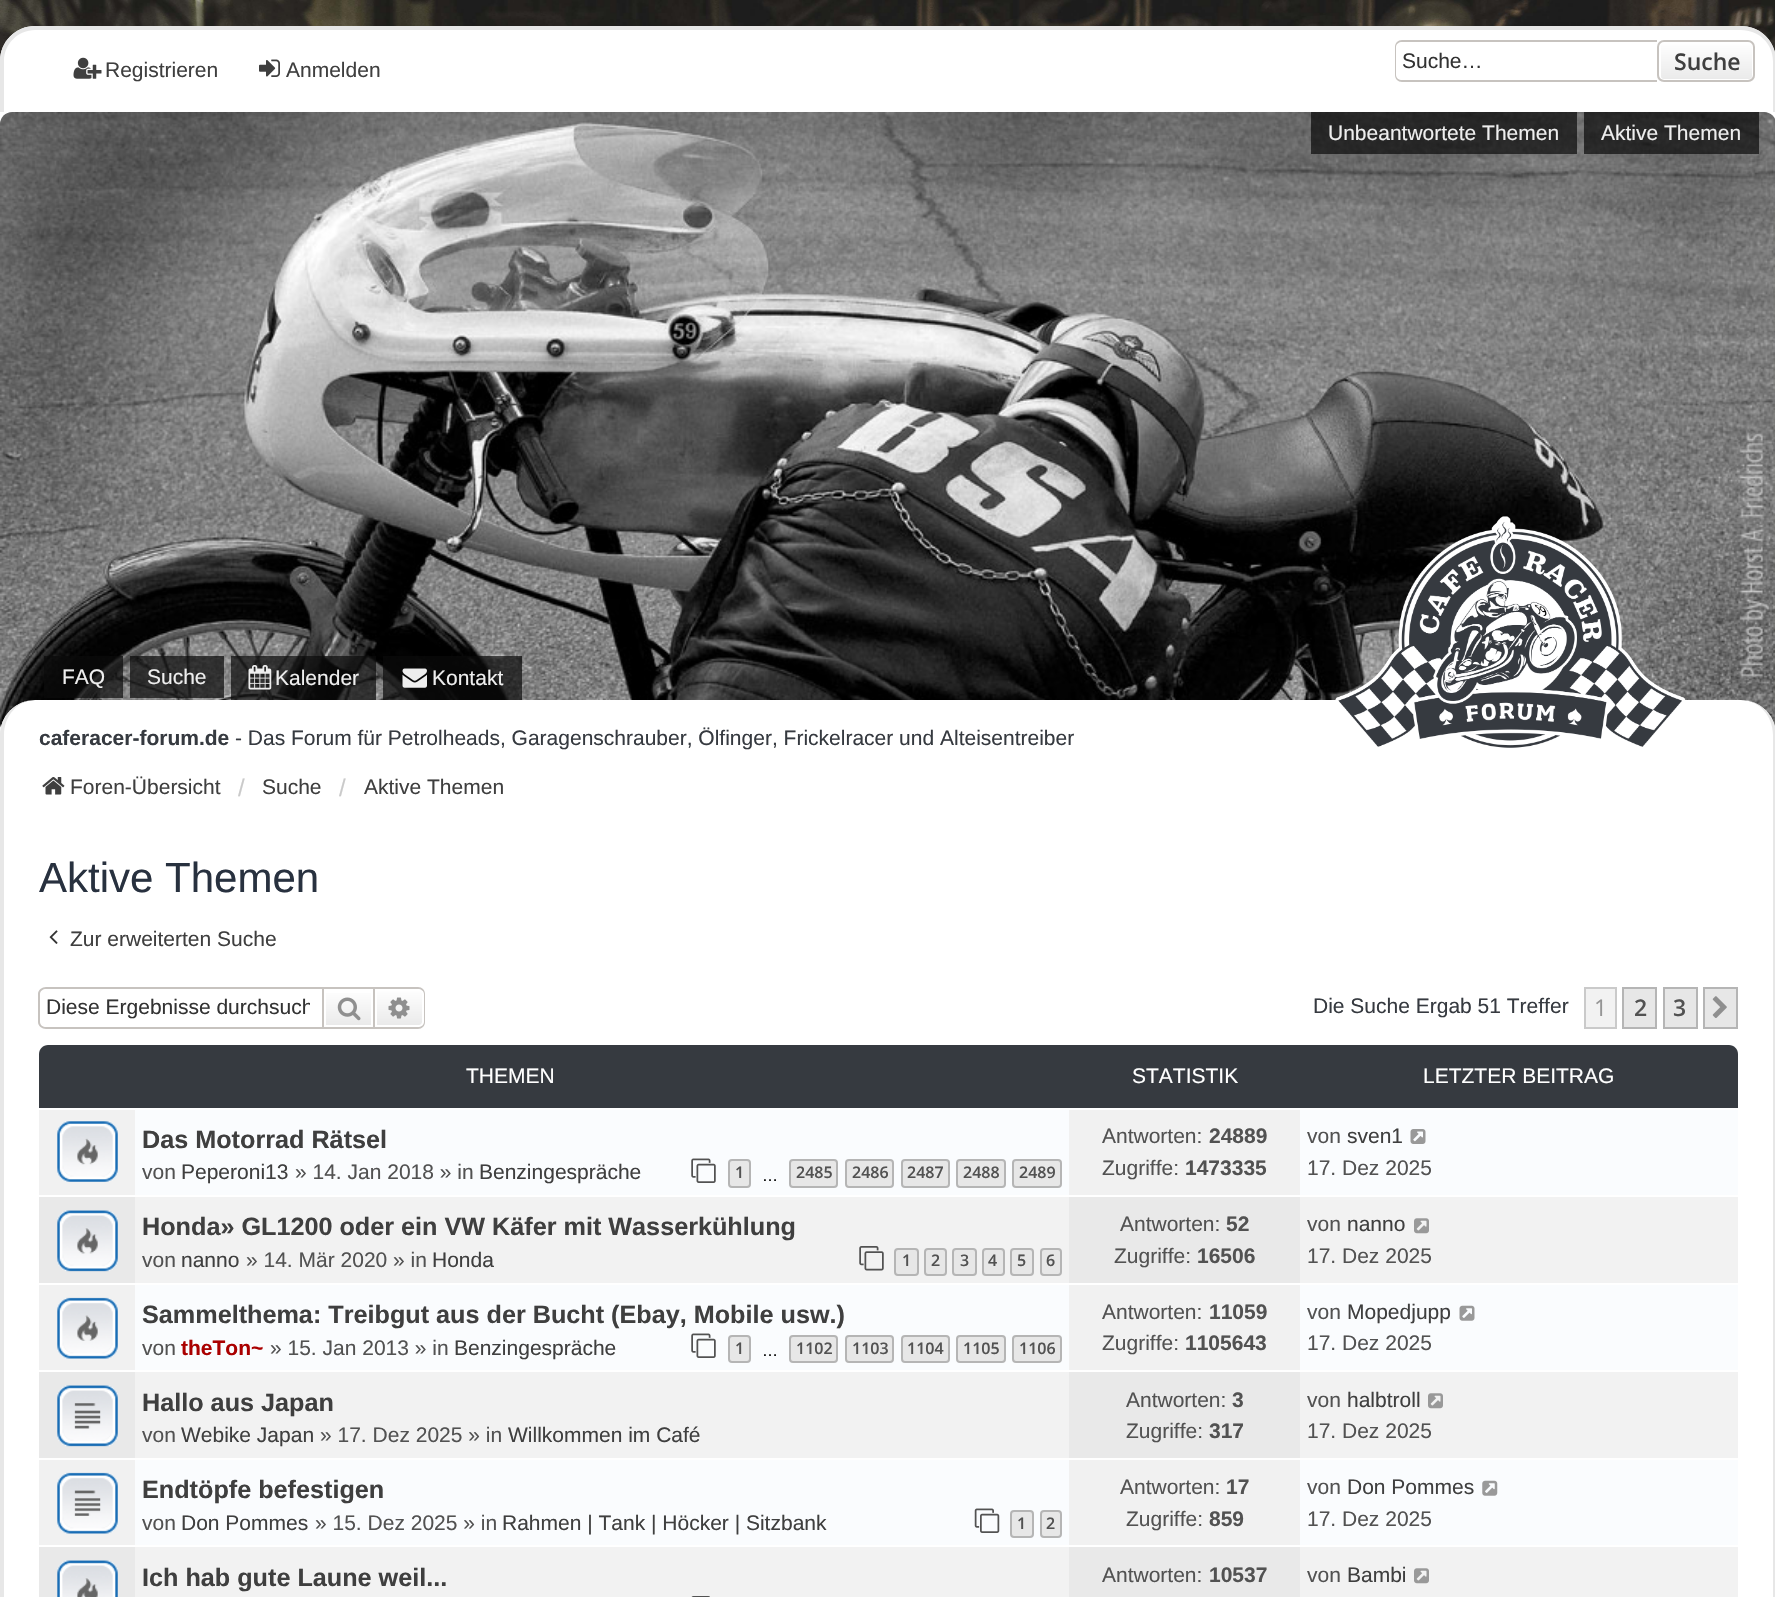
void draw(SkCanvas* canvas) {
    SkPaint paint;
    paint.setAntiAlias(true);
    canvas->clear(0xFFFFFFFF);
    canvas->drawImageRect(SkImages::DeferredFromEncodedData(SkData::MakeFromFileName("img1.png")), SkRect::MakeXYWH(0, 0, 1775, 61), SkSamplingOptions());
    paint.setColor(0xFFFFFFFF);
    canvas->drawPath(SkPathBuilder().moveTo(35, 26).lineTo(1741, 26).cubicTo(1760.5f, 26, 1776, 41.5f, 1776, 61).lineTo(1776, 112).lineTo(0, 112).lineTo(0, 61).cubicTo(0, 41.5f, 15.5f, 26, 35, 26).close().detach(), paint);
    paint.setColor(0xFFE7E7E7);
    canvas->drawPath(SkPathBuilder(SkPathFillType::kEvenOdd).moveTo(35, 26).lineTo(1741, 26).cubicTo(1761, 26, 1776, 42, 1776, 61).lineTo(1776, 112).lineTo(0, 112).lineTo(0, 61).cubicTo(0, 42, 16, 26, 35, 26).close().moveTo(35, 30).lineTo(1741, 30).cubicTo(1759, 30, 1773, 44, 1773, 61).lineTo(1773, 112).lineTo(4, 112).lineTo(4, 61).cubicTo(4, 44, 18, 30, 35, 30).close().detach(), paint);
    canvas->drawImageRect(SkImages::DeferredFromEncodedData(SkData::MakeFromFileName("img2.png")), SkRect::MakeXYWH(73, 57, 29, 22), SkSamplingOptions());
    SkFont font1(fontMgr->matchFamilyStyle("Liberation Sans", SkFontStyle::Normal()), 21);
    font1.setSubpixel(true);
    paint.setColor(0xFF3F3F3F);
    canvas->drawString("Registrieren", 105, 77, font1, paint);
    canvas->drawImageRect(SkImages::DeferredFromEncodedData(SkData::MakeFromFileName("img3.png")), SkRect::MakeXYWH(259, 59, 21, 18), SkSamplingOptions());
    canvas->drawString("Anmelden", 286, 77, font1, paint);
    paint.setColor(0xFFC7C3BF);
    canvas->drawPath(SkPathBuilder(SkPathFillType::kEvenOdd).moveTo(1402, 40).lineTo(1657, 40).lineTo(1657, 82).lineTo(1402, 82).cubicTo(1398, 82, 1395, 79, 1395, 75).lineTo(1395, 47).cubicTo(1395, 43, 1398, 40, 1402, 40).close().moveTo(1402, 42).lineTo(1657, 42).lineTo(1657, 80).lineTo(1402, 80).cubicTo(1399, 80, 1396, 78, 1396, 75).lineTo(1396, 47).cubicTo(1396, 44, 1399, 42, 1402, 42).close().detach(), paint);
    paint.setColor(0xFF333333);
    canvas->drawString("Suche…", 1402, 68, font1, paint);
    canvas->save();
    canvas->clipPath(SkPathBuilder().moveTo(1664, 40).lineTo(1748, 40).cubicTo(1752, 40, 1755, 43, 1755, 47).lineTo(1755, 75).cubicTo(1755, 79, 1752, 82, 1748, 82).lineTo(1664, 82).cubicTo(1660, 82, 1657, 79, 1657, 75).lineTo(1657, 47).cubicTo(1657, 43, 1660, 40, 1664, 40).close().detach(), true);
    {
        const SkColor colors[] = {0xFFFFFFFF, 0xFFE9E9E9};
        const float stops[] = {0, 1};
        const SkPoint ends[] = {{1706, 42}, {1706, 81}};
        paint.setShader(SkGradientShader::MakeLinear(ends, colors, stops, 2, SkTileMode::kClamp));
        paint.setAlpha(255);
    }
    canvas->drawRect(SkRect::MakeXYWH(1657, 42, 98, 39), paint);
    canvas->restore();
    paint.setStyle(SkPaint::kStroke_Style);
    paint.setStrokeWidth(2);
    paint.setShader(nullptr);
    paint.setColor(0xFFFFFFFF);
    canvas->drawRoundRect(SkRect::MakeXYWH(1660, 43, 93, 37), 4, 4, paint);
    paint.setColor(0xFFC7C3BF);
    canvas->drawRoundRect(SkRect::MakeXYWH(1658, 41, 96, 40), 6, 6, paint);
    SkFont font2(fontMgr->matchFamilyStyle("Open Sans", SkFontStyle(600, SkFontStyle::kNormal_Width, SkFontStyle::kUpright_Slant)), 23);
    font2.setSubpixel(true);
    paint.setStyle(SkPaint::kFill_Style);
    paint.setColor(0xFF3F3F3F);
    canvas->drawString("Suche", 1674, 70, font2, paint);
    canvas->drawImageRect(SkImages::DeferredFromEncodedData(SkData::MakeFromFileName("img4.png")), SkRect::MakeXYWH(0, 112, 1775, 616), SkSamplingOptions());
    paint.setColor(0xB30A0A0A);
    canvas->drawRect(SkRect::MakeXYWH(1311, 112, 266, 42), paint);
    paint.setColor(0xFFEEEEEE);
    canvas->drawString("Unbeantwortete Themen", 1328, 140, font1, paint);
    paint.setColor(0xB30A0A0A);
    canvas->drawRect(SkRect::MakeXYWH(1584, 112, 175, 42), paint);
    paint.setColor(0xFFEEEEEE);
    canvas->drawString("Aktive Themen", 1601, 140, font1, paint);
    paint.setColor(0xB30A0A0A);
    canvas->drawRect(SkRect::MakeXYWH(44, 656, 79, 42), paint);
    paint.setColor(0xFFEEEEEE);
    canvas->drawString("FAQ", 62, 684, font1, paint);
    paint.setColor(0xB30A0A0A);
    canvas->drawRect(SkRect::MakeXYWH(130, 656, 94, 42), paint);
    paint.setColor(0xFFEEEEEE);
    canvas->drawString("Suche", 147, 684, font1, paint);
    paint.setColor(0xB30A0A0A);
    canvas->drawRect(SkRect::MakeXYWH(231, 656, 145, 44), paint);
    canvas->drawImageRect(SkImages::DeferredFromEncodedData(SkData::MakeFromFileName("img5.png")), SkRect::MakeXYWH(248, 665, 24, 25), SkSamplingOptions());
    paint.setColor(0xFFEEEEEE);
    canvas->drawString("Kalender", 275, 685, font1, paint);
    paint.setColor(0xB30A0A0A);
    canvas->drawRect(SkRect::MakeXYWH(383, 656, 139, 44), paint);
    canvas->drawImageRect(SkImages::DeferredFromEncodedData(SkData::MakeFromFileName("img6.png")), SkRect::MakeXYWH(402, 668, 25, 20), SkSamplingOptions());
    paint.setColor(0xFFEEEEEE);
    canvas->drawString("Kontakt", 432, 685, font1, paint);
    paint.setColor(0xFFFFFFFF);
    canvas->drawRoundRect(SkRect::MakeXYWH(0, 700, 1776, 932), 35, 35, paint);
    paint.setColor(0xFFE7E7E7);
    canvas->drawPath(SkPathBuilder(SkPathFillType::kEvenOdd).moveTo(35, 700).lineTo(1741, 700).cubicTo(1761, 700, 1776, 716, 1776, 735).lineTo(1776, 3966).cubicTo(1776, 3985, 1761, 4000, 1741, 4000).lineTo(35, 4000).cubicTo(16, 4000, 0, 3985, 0, 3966).lineTo(0, 735).cubicTo(0, 716, 16, 700, 35, 700).close().moveTo(35, 700).lineTo(1741, 700).cubicTo(1759, 700, 1773, 716, 1773, 735).lineTo(1773, 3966).cubicTo(1773, 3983, 1759, 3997, 1741, 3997).lineTo(35, 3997).cubicTo(18, 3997, 4, 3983, 4, 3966).lineTo(4, 735).cubicTo(4, 716, 18, 700, 35, 700).close().detach(), paint);
    SkFont font3(fontMgr->matchFamilyStyle("Liberation Sans", SkFontStyle::Bold()), 21);
    font3.setSubpixel(true);
    paint.setColor(0xFF363A40);
    canvas->drawString("caferacer-forum.de", 39, 745, font3, paint);
    canvas->drawString("- Das Forum für Petrolheads, Garagenschrauber, Ölfinger, Frickelracer und Alteisentreiber", 235, 745, font1, paint);
    canvas->drawImageRect(SkImages::DeferredFromEncodedData(SkData::MakeFromFileName("img7.png")), SkRect::MakeXYWH(1335, 516, 351, 232), SkSamplingOptions());
    canvas->drawImageRect(SkImages::DeferredFromEncodedData(SkData::MakeFromFileName("img8.png")), SkRect::MakeXYWH(42, 777, 23, 18), SkSamplingOptions());
    paint.setColor(0xFF3F3F3F);
    canvas->drawString("Foren-Übersicht", 70, 794, font1, paint);
    SkFont font4(fontMgr->matchFamilyStyle("Liberation Sans", SkFontStyle::Normal()), 24);
    font4.setSubpixel(true);
    paint.setColor(0xFFCACACA);
    canvas->drawString("/", 238, 796, font4, paint);
    paint.setColor(0xFF3F3F3F);
    canvas->drawString("Suche", 262, 794, font1, paint);
    paint.setColor(0xFFCACACA);
    canvas->drawString("/", 339, 796, font4, paint);
    paint.setColor(0xFF3F3F3F);
    canvas->drawString("Aktive Themen", 364, 794, font1, paint);
    SkFont font5(fontMgr->matchFamilyStyle("Liberation Sans", SkFontStyle::Normal()), 42);
    font5.setSubpixel(true);
    paint.setColor(0xFF28313F);
    canvas->drawString("Aktive Themen", 39, 892, font5, paint);
    canvas->drawImageRect(SkImages::DeferredFromEncodedData(SkData::MakeFromFileName("img9.png")), SkRect::MakeXYWH(49, 930, 9, 14), SkSamplingOptions());
    paint.setColor(0xFF3F3F3F);
    canvas->drawString("Zur erweiterten Suche", 70, 946, font1, paint);
    paint.setColor(0xFFC7C3BF);
    canvas->drawPath(SkPathBuilder(SkPathFillType::kEvenOdd).moveTo(46, 987).lineTo(322, 987).lineTo(322, 1029).lineTo(46, 1029).cubicTo(42, 1029, 38, 1026, 38, 1022).lineTo(38, 994).cubicTo(38, 990, 42, 987, 46, 987).close().moveTo(46, 989).lineTo(322, 989).lineTo(322, 1027).lineTo(46, 1027).cubicTo(43, 1027, 40, 1025, 40, 1022).lineTo(40, 994).cubicTo(40, 991, 43, 989, 46, 989).close().detach(), paint);
    canvas->save();
    canvas->clipRect(SkRect::MakeXYWH(46, 996, 264, 24));
    paint.setColor(0xFF333333);
    canvas->drawString("Diese Ergebnisse durchsuch", 46, 1014, font1, paint);
    canvas->restore();
    {
        const SkColor colors[] = {0xFFFFFFFF, 0xFFE9E9E9};
        const float stops[] = {0, 1};
        const SkPoint ends[] = {{348, 989}, {348, 1027}};
        paint.setShader(SkGradientShader::MakeLinear(ends, colors, stops, 2, SkTileMode::kClamp));
        paint.setAlpha(255);
    }
    canvas->drawRect(SkRect::MakeXYWH(326, 993, 45, 32), paint);
    paint.setStyle(SkPaint::kStroke_Style);
    paint.setShader(nullptr);
    paint.setColor(0xFFC7C3BF);
    canvas->drawRect(SkRect::MakeXYWH(323, 988, 51, 40), paint);
    canvas->drawImageRect(SkImages::DeferredFromEncodedData(SkData::MakeFromFileName("img10.png")), SkRect::MakeXYWH(337, 997, 24, 24), SkSamplingOptions());
    paint.setStyle(SkPaint::kFill_Style);
    {
        const SkColor colors[] = {0xFFFFFFFF, 0xFFE9E9E9};
        const float stops[] = {0, 1};
        const SkPoint ends[] = {{399, 989}, {399, 1027}};
        paint.setShader(SkGradientShader::MakeLinear(ends, colors, stops, 2, SkTileMode::kClamp));
        paint.setAlpha(255);
    }
    canvas->drawPath(SkPathBuilder().moveTo(376, 990).lineTo(419, 990).cubicTo(421, 990, 423, 992, 423, 994).lineTo(423, 1022).cubicTo(423, 1024, 421, 1026, 419, 1026).lineTo(376, 1026).close().detach(), paint);
    paint.setStyle(SkPaint::kStroke_Style);
    paint.setShader(nullptr);
    paint.setColor(0xFFFFFFFF);
    canvas->drawPath(SkPathBuilder().moveTo(376, 990).lineTo(419, 990).cubicTo(421, 990, 423, 992, 423, 994).lineTo(423, 1022).cubicTo(423, 1024, 421, 1026, 419, 1026).lineTo(376, 1026).close().detach(), paint);
    paint.setStyle(SkPaint::kFill_Style);
    paint.setColor(0xFFC7C3BF);
    canvas->drawPath(SkPathBuilder(SkPathFillType::kEvenOdd).moveTo(374, 987).lineTo(418, 987).cubicTo(422, 987, 425, 990, 425, 994).lineTo(425, 1022).cubicTo(425, 1026, 422, 1029, 418, 1029).lineTo(374, 1029).close().moveTo(374, 989).lineTo(418, 989).cubicTo(421, 989, 424, 991, 424, 994).lineTo(424, 1022).cubicTo(424, 1025, 421, 1027, 418, 1027).lineTo(374, 1027).close().detach(), paint);
    canvas->drawImageRect(SkImages::DeferredFromEncodedData(SkData::MakeFromFileName("img11.png")), SkRect::MakeXYWH(388, 997, 22, 22), SkSamplingOptions());
    paint.setColor(0xFF363A40);
    canvas->drawString("Die Suche Ergab 51 Treffer", 1313, 1013, font1, paint);
    paint.setColor(0xFFF2F2F2);
    canvas->drawRect(SkRect::MakeXYWH(1585, 988, 31, 40), paint);
    paint.setStyle(SkPaint::kStroke_Style);
    paint.setColor(0xFFCACACA);
    canvas->drawRect(SkRect::MakeXYWH(1585, 988, 31, 40), paint);
    SkFont font6(fontMgr->matchFamilyStyle("Open Sans", SkFontStyle::Normal()), 23);
    font6.setSubpixel(true);
    paint.setStyle(SkPaint::kFill_Style);
    paint.setColor(0xFF959595);
    canvas->drawString("1", 1594, 1016, font6, paint);
    paint.setColor(0xFFE7E7E7);
    canvas->drawRect(SkRect::MakeXYWH(1623, 988, 33, 40), paint);
    paint.setStyle(SkPaint::kStroke_Style);
    paint.setColor(0xFFB5B5B5);
    canvas->drawRect(SkRect::MakeXYWH(1623, 988, 33, 40), paint);
    paint.setStyle(SkPaint::kFill_Style);
    paint.setColor(0xFF525252);
    canvas->drawString("2", 1634, 1016, font2, paint);
    paint.setColor(0xFFE7E7E7);
    canvas->drawRect(SkRect::MakeXYWH(1664, 988, 33, 40), paint);
    paint.setStyle(SkPaint::kStroke_Style);
    paint.setColor(0xFFB5B5B5);
    canvas->drawRect(SkRect::MakeXYWH(1664, 988, 33, 40), paint);
    paint.setStyle(SkPaint::kFill_Style);
    paint.setColor(0xFF525252);
    canvas->drawString("3", 1673, 1016, font2, paint);
    paint.setColor(0xFFE7E7E7);
    canvas->drawRect(SkRect::MakeXYWH(1704, 988, 33, 40), paint);
    paint.setStyle(SkPaint::kStroke_Style);
    paint.setColor(0xFFB5B5B5);
    canvas->drawRect(SkRect::MakeXYWH(1704, 988, 33, 40), paint);
    canvas->drawImageRect(SkImages::DeferredFromEncodedData(SkData::MakeFromFileName("img12.png")), SkRect::MakeXYWH(1712, 996, 15, 22), SkSamplingOptions());
    paint.setStyle(SkPaint::kFill_Style);
    paint.setColor(0xFF363A40);
    canvas->drawPath(SkPathBuilder().moveTo(48, 1045).lineTo(1729, 1045).cubicTo(1734, 1045, 1738, 1049, 1738, 1054).lineTo(1738, 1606).lineTo(39, 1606).lineTo(39, 1054).cubicTo(39, 1049, 43, 1045, 48, 1045).close().detach(), paint);
    paint.setColor(0xFFFFFFFF);
    canvas->drawString("THEMEN", 466, 1083, font1, paint);
    canvas->drawString("STATISTIK", 1132, 1083, font1, paint);
    canvas->drawString("LETZTER BEITRAG", 1423, 1083, font1, paint);
    paint.setColor(0xFFFAFCFE);
    canvas->drawRect(SkRect::MakeXYWH(135, 1110, 1603, 435), paint);
    paint.setColor(0xFFFFFFFF);
    canvas->drawRect(SkRect::MakeXYWH(39, 1108, 1699, 2), paint);
    paint.setColor(0xFFF1F1F1);
    canvas->drawRect(SkRect::MakeXYWH(39, 1110, 96, 85), paint);
    canvas->drawImageRect(SkImages::DeferredFromEncodedData(SkData::MakeFromFileName("img13.png")), SkRect::MakeXYWH(57, 1121, 61, 61), SkSamplingOptions());
    SkFont font7(fontMgr->matchFamilyStyle("Liberation Sans", SkFontStyle::Bold()), 25.2f);
    font7.setSubpixel(true);
    paint.setColor(0xFF3F3F3F);
    canvas->drawString("Das Motorrad Rätsel", 142, 1148, font7, paint);
    paint.setColor(0xFF525252);
    canvas->drawString("von", 142, 1179, font1, paint);
    paint.setColor(0xFF3F3F3F);
    canvas->drawString("Peperoni13", 181, 1179, font1, paint);
    paint.setColor(0xFF525252);
    canvas->drawString("» 14. Jan 2018 » in", 295, 1179, font1, paint);
    paint.setColor(0xFF3F3F3F);
    canvas->drawString("Benzingespräche", 479, 1179, font1, paint);
    canvas->drawImageRect(SkImages::DeferredFromEncodedData(SkData::MakeFromFileName("img14.png")), SkRect::MakeXYWH(691, 1158, 25, 25), SkSamplingOptions());
    paint.setColor(0xFFE7E7E7);
    canvas->drawRoundRect(SkRect::MakeXYWH(729, 1160, 21, 27), 3, 3, paint);
    paint.setStyle(SkPaint::kStroke_Style);
    paint.setColor(0xFFB5B5B5);
    canvas->drawRoundRect(SkRect::MakeXYWH(729, 1160, 21, 27), 3, 3, paint);
    SkFont font8(fontMgr->matchFamilyStyle("Open Sans", SkFontStyle(600, SkFontStyle::kNormal_Width, SkFontStyle::kUpright_Slant)), 16);
    font8.setSubpixel(true);
    paint.setStyle(SkPaint::kFill_Style);
    paint.setColor(0xFF525252);
    canvas->drawString("1", 735, 1178, font8, paint);
    paint.setColor(0xFFE7E7E7);
    canvas->drawRoundRect(SkRect::MakeXYWH(790, 1160, 47, 27), 3, 3, paint);
    paint.setStyle(SkPaint::kStroke_Style);
    paint.setColor(0xFFB5B5B5);
    canvas->drawRoundRect(SkRect::MakeXYWH(790, 1160, 47, 27), 3, 3, paint);
    paint.setStyle(SkPaint::kFill_Style);
    paint.setColor(0xFF525252);
    canvas->drawString("2485", 796, 1178, font8, paint);
    paint.setColor(0xFFE7E7E7);
    canvas->drawRoundRect(SkRect::MakeXYWH(846, 1160, 47, 27), 3, 3, paint);
    paint.setStyle(SkPaint::kStroke_Style);
    paint.setColor(0xFFB5B5B5);
    canvas->drawRoundRect(SkRect::MakeXYWH(846, 1160, 47, 27), 3, 3, paint);
    paint.setStyle(SkPaint::kFill_Style);
    paint.setColor(0xFF525252);
    canvas->drawString("2486", 852, 1178, font8, paint);
    paint.setColor(0xFFE7E7E7);
    canvas->drawRoundRect(SkRect::MakeXYWH(902, 1160, 47, 27), 3, 3, paint);
    paint.setStyle(SkPaint::kStroke_Style);
    paint.setColor(0xFFB5B5B5);
    canvas->drawRoundRect(SkRect::MakeXYWH(902, 1160, 47, 27), 3, 3, paint);
    paint.setStyle(SkPaint::kFill_Style);
    paint.setColor(0xFF525252);
    canvas->drawString("2487", 907, 1178, font8, paint);
    paint.setColor(0xFFE7E7E7);
    canvas->drawRoundRect(SkRect::MakeXYWH(957, 1160, 48, 27), 3, 3, paint);
    paint.setStyle(SkPaint::kStroke_Style);
    paint.setColor(0xFFB5B5B5);
    canvas->drawRoundRect(SkRect::MakeXYWH(957, 1160, 48, 27), 3, 3, paint);
    paint.setStyle(SkPaint::kFill_Style);
    paint.setColor(0xFF525252);
    canvas->drawString("2488", 963, 1178, font8, paint);
    paint.setColor(0xFFE7E7E7);
    canvas->drawRoundRect(SkRect::MakeXYWH(1013, 1160, 48, 27), 3, 3, paint);
    paint.setStyle(SkPaint::kStroke_Style);
    paint.setColor(0xFFB5B5B5);
    canvas->drawRoundRect(SkRect::MakeXYWH(1013, 1160, 48, 27), 3, 3, paint);
    paint.setStyle(SkPaint::kFill_Style);
    paint.setColor(0xFF525252);
    canvas->drawString("2489", 1019, 1178, font8, paint);
    SkFont font9(fontMgr->matchFamilyStyle("Liberation Sans", SkFontStyle::Normal()), 16);
    font9.setSubpixel(true);
    paint.setColor(0xFF000000);
    canvas->drawString("…", 762, 1181, font9, paint);
    paint.setColor(0xFFF1F1F1);
    canvas->drawRect(SkRect::MakeXYWH(1069, 1110, 231, 85), paint);
    paint.setColor(0xFF525252);
    canvas->drawString("Antworten:", 1102, 1143, font1, paint);
    canvas->drawString("24889", 1209, 1143, font3, paint);
    canvas->drawString("Zugriffe:", 1102, 1175, font1, paint);
    canvas->drawString("1473335", 1185, 1175, font3, paint);
    canvas->drawString("von", 1307, 1143, font1, paint);
    paint.setColor(0xFF3F3F3F);
    canvas->drawString("sven1", 1347, 1143, font1, paint);
    canvas->drawImageRect(SkImages::DeferredFromEncodedData(SkData::MakeFromFileName("img15.png")), SkRect::MakeXYWH(1410, 1129, 16, 15), SkSamplingOptions());
    paint.setColor(0xFF525252);
    canvas->drawString("17. Dez 2025", 1307, 1175, font1, paint);
    paint.setColor(0xFFF2F2F2);
    canvas->drawRect(SkRect::MakeXYWH(135, 1197, 1603, 86), paint);
    paint.setColor(0xFFFFFFFF);
    canvas->drawRect(SkRect::MakeXYWH(39, 1195, 1699, 2), paint);
    paint.setColor(0xFFE9E9E9);
    canvas->drawRect(SkRect::MakeXYWH(39, 1197, 96, 86), paint);
    canvas->drawImageRect(SkImages::DeferredFromEncodedData(SkData::MakeFromFileName("img16.png")), SkRect::MakeXYWH(57, 1210, 61, 62), SkSamplingOptions());
    paint.setColor(0xFF3F3F3F);
    canvas->drawString("Honda» GL1200 oder ein VW Käfer mit Wasserkühlung", 142, 1235, font7, paint);
    paint.setColor(0xFF525252);
    canvas->drawString("von", 142, 1267, font1, paint);
    paint.setColor(0xFF3F3F3F);
    canvas->drawString("nanno", 181, 1267, font1, paint);
    paint.setColor(0xFF525252);
    canvas->drawString("» 14. Mär 2020 » in", 246, 1267, font1, paint);
    paint.setColor(0xFF3F3F3F);
    canvas->drawString("Honda", 432, 1267, font1, paint);
    canvas->drawImageRect(SkImages::DeferredFromEncodedData(SkData::MakeFromFileName("img17.png")), SkRect::MakeXYWH(859, 1246, 25, 25), SkSamplingOptions());
    paint.setColor(0xFFE7E7E7);
    canvas->drawRoundRect(SkRect::MakeXYWH(895, 1249, 23, 26), 3, 3, paint);
    paint.setStyle(SkPaint::kStroke_Style);
    paint.setColor(0xFFB5B5B5);
    canvas->drawRoundRect(SkRect::MakeXYWH(895, 1249, 23, 26), 3, 3, paint);
    paint.setStyle(SkPaint::kFill_Style);
    paint.setColor(0xFF525252);
    canvas->drawString("1", 902, 1266, font8, paint);
    paint.setColor(0xFFE7E7E7);
    canvas->drawRoundRect(SkRect::MakeXYWH(925, 1249, 21, 26), 3, 3, paint);
    paint.setStyle(SkPaint::kStroke_Style);
    paint.setColor(0xFFB5B5B5);
    canvas->drawRoundRect(SkRect::MakeXYWH(925, 1249, 21, 26), 3, 3, paint);
    paint.setStyle(SkPaint::kFill_Style);
    paint.setColor(0xFF525252);
    canvas->drawString("2", 931, 1266, font8, paint);
    paint.setColor(0xFFE7E7E7);
    canvas->drawRoundRect(SkRect::MakeXYWH(953, 1249, 23, 26), 3, 3, paint);
    paint.setStyle(SkPaint::kStroke_Style);
    paint.setColor(0xFFB5B5B5);
    canvas->drawRoundRect(SkRect::MakeXYWH(953, 1249, 23, 26), 3, 3, paint);
    paint.setStyle(SkPaint::kFill_Style);
    paint.setColor(0xFF525252);
    canvas->drawString("3", 960, 1266, font8, paint);
    paint.setColor(0xFFE7E7E7);
    canvas->drawRoundRect(SkRect::MakeXYWH(983, 1249, 21, 26), 3, 3, paint);
    paint.setStyle(SkPaint::kStroke_Style);
    paint.setColor(0xFFB5B5B5);
    canvas->drawRoundRect(SkRect::MakeXYWH(983, 1249, 21, 26), 3, 3, paint);
    paint.setStyle(SkPaint::kFill_Style);
    paint.setColor(0xFF525252);
    canvas->drawString("4", 988, 1266, font8, paint);
    paint.setColor(0xFFE7E7E7);
    canvas->drawRoundRect(SkRect::MakeXYWH(1011, 1249, 22, 26), 3, 3, paint);
    paint.setStyle(SkPaint::kStroke_Style);
    paint.setColor(0xFFB5B5B5);
    canvas->drawRoundRect(SkRect::MakeXYWH(1011, 1249, 22, 26), 3, 3, paint);
    paint.setStyle(SkPaint::kFill_Style);
    paint.setColor(0xFF525252);
    canvas->drawString("5", 1017, 1266, font8, paint);
    paint.setColor(0xFFE7E7E7);
    canvas->drawRoundRect(SkRect::MakeXYWH(1041, 1249, 20, 26), 3, 3, paint);
    paint.setStyle(SkPaint::kStroke_Style);
    paint.setColor(0xFFB5B5B5);
    canvas->drawRoundRect(SkRect::MakeXYWH(1041, 1249, 20, 26), 3, 3, paint);
    paint.setStyle(SkPaint::kFill_Style);
    paint.setColor(0xFF525252);
    canvas->drawString("6", 1046, 1266, font8, paint);
    paint.setColor(0xFFE9E9E9);
    canvas->drawRect(SkRect::MakeXYWH(1069, 1197, 231, 86), paint);
    paint.setColor(0xFF525252);
    canvas->drawString("Antworten:", 1120, 1231, font1, paint);
    canvas->drawString("52", 1226, 1231, font3, paint);
    canvas->drawString("Zugriffe:", 1114, 1263, font1, paint);
    canvas->drawString("16506", 1197, 1263, font3, paint);
    canvas->drawString("von", 1307, 1231, font1, paint);
    paint.setColor(0xFF3F3F3F);
    canvas->drawString("nanno", 1347, 1231, font1, paint);
    canvas->drawImageRect(SkImages::DeferredFromEncodedData(SkData::MakeFromFileName("img18.png")), SkRect::MakeXYWH(1414, 1218, 15, 16), SkSamplingOptions());
    paint.setColor(0xFF525252);
    canvas->drawString("17. Dez 2025", 1307, 1263, font1, paint);
    paint.setColor(0xFFFFFFFF);
    canvas->drawRect(SkRect::MakeXYWH(39, 1283, 1699, 2), paint);
    paint.setColor(0xFFF1F1F1);
    canvas->drawRect(SkRect::MakeXYWH(39, 1285, 96, 85), paint);
    canvas->drawImageRect(SkImages::DeferredFromEncodedData(SkData::MakeFromFileName("img19.png")), SkRect::MakeXYWH(57, 1297, 61, 62), SkSamplingOptions());
    paint.setColor(0xFF3F3F3F);
    canvas->drawString("Sammelthema: Treibgut aus der Bucht (Ebay, Mobile usw.)", 142, 1323, font7, paint);
    paint.setColor(0xFF525252);
    canvas->drawString("von", 142, 1355, font1, paint);
    paint.setColor(0xFFAA0000);
    canvas->drawString("theTon~", 181, 1355, font3, paint);
    paint.setColor(0xFF525252);
    canvas->drawString("» 15. Jan 2013 » in", 270, 1355, font1, paint);
    paint.setColor(0xFF3F3F3F);
    canvas->drawString("Benzingespräche", 454, 1355, font1, paint);
    canvas->drawImageRect(SkImages::DeferredFromEncodedData(SkData::MakeFromFileName("img14.png")), SkRect::MakeXYWH(691, 1333, 25, 25), SkSamplingOptions());
    paint.setColor(0xFFE7E7E7);
    canvas->drawRoundRect(SkRect::MakeXYWH(729, 1336, 21, 26), 3, 3, paint);
    paint.setStyle(SkPaint::kStroke_Style);
    paint.setColor(0xFFB5B5B5);
    canvas->drawRoundRect(SkRect::MakeXYWH(729, 1336, 21, 26), 3, 3, paint);
    paint.setStyle(SkPaint::kFill_Style);
    paint.setColor(0xFF525252);
    canvas->drawString("1", 735, 1354, font8, paint);
    paint.setColor(0xFF000000);
    canvas->drawString("…", 762, 1356, font9, paint);
    paint.setColor(0xFFE7E7E7);
    canvas->drawRoundRect(SkRect::MakeXYWH(790, 1336, 47, 26), 3, 3, paint);
    paint.setStyle(SkPaint::kStroke_Style);
    paint.setColor(0xFFB5B5B5);
    canvas->drawRoundRect(SkRect::MakeXYWH(790, 1336, 47, 26), 3, 3, paint);
    paint.setStyle(SkPaint::kFill_Style);
    paint.setColor(0xFF525252);
    canvas->drawString("1102", 796, 1354, font8, paint);
    paint.setColor(0xFFE7E7E7);
    canvas->drawRoundRect(SkRect::MakeXYWH(846, 1336, 47, 26), 3, 3, paint);
    paint.setStyle(SkPaint::kStroke_Style);
    paint.setColor(0xFFB5B5B5);
    canvas->drawRoundRect(SkRect::MakeXYWH(846, 1336, 47, 26), 3, 3, paint);
    paint.setStyle(SkPaint::kFill_Style);
    paint.setColor(0xFF525252);
    canvas->drawString("1103", 852, 1354, font8, paint);
    paint.setColor(0xFFE7E7E7);
    canvas->drawRoundRect(SkRect::MakeXYWH(902, 1336, 47, 26), 3, 3, paint);
    paint.setStyle(SkPaint::kStroke_Style);
    paint.setColor(0xFFB5B5B5);
    canvas->drawRoundRect(SkRect::MakeXYWH(902, 1336, 47, 26), 3, 3, paint);
    paint.setStyle(SkPaint::kFill_Style);
    paint.setColor(0xFF525252);
    canvas->drawString("1104", 907, 1354, font8, paint);
    paint.setColor(0xFFE7E7E7);
    canvas->drawRoundRect(SkRect::MakeXYWH(957, 1336, 48, 26), 3, 3, paint);
    paint.setStyle(SkPaint::kStroke_Style);
    paint.setColor(0xFFB5B5B5);
    canvas->drawRoundRect(SkRect::MakeXYWH(957, 1336, 48, 26), 3, 3, paint);
    paint.setStyle(SkPaint::kFill_Style);
    paint.setColor(0xFF525252);
    canvas->drawString("1105", 963, 1354, font8, paint);
    paint.setColor(0xFFE7E7E7);
    canvas->drawRoundRect(SkRect::MakeXYWH(1013, 1336, 48, 26), 3, 3, paint);
    paint.setStyle(SkPaint::kStroke_Style);
    paint.setColor(0xFFB5B5B5);
    canvas->drawRoundRect(SkRect::MakeXYWH(1013, 1336, 48, 26), 3, 3, paint);
    paint.setStyle(SkPaint::kFill_Style);
    paint.setColor(0xFF525252);
    canvas->drawString("1106", 1019, 1354, font8, paint);
    paint.setColor(0xFFF1F1F1);
    canvas->drawRect(SkRect::MakeXYWH(1069, 1285, 231, 85), paint);
    paint.setColor(0xFF525252);
    canvas->drawString("Antworten:", 1102, 1319, font1, paint);
    canvas->drawString("11059", 1209, 1319, font3, paint);
    canvas->drawString("Zugriffe:", 1102, 1350, font1, paint);
    canvas->drawString("1105643", 1185, 1350, font3, paint);
    canvas->drawString("von", 1307, 1319, font1, paint);
    paint.setColor(0xFF3F3F3F);
    canvas->drawString("Mopedjupp", 1347, 1319, font1, paint);
    canvas->drawImageRect(SkImages::DeferredFromEncodedData(SkData::MakeFromFileName("img20.png")), SkRect::MakeXYWH(1459, 1305, 16, 16), SkSamplingOptions());
    paint.setColor(0xFF525252);
    canvas->drawString("17. Dez 2025", 1307, 1350, font1, paint);
    paint.setColor(0xFFF2F2F2);
    canvas->drawRect(SkRect::MakeXYWH(135, 1372, 1603, 86), paint);
    paint.setColor(0xFFFFFFFF);
    canvas->drawRect(SkRect::MakeXYWH(39, 1370, 1699, 2), paint);
    paint.setColor(0xFFE9E9E9);
    canvas->drawRect(SkRect::MakeXYWH(39, 1372, 96, 86), paint);
    canvas->drawImageRect(SkImages::DeferredFromEncodedData(SkData::MakeFromFileName("img21.png")), SkRect::MakeXYWH(57, 1385, 61, 62), SkSamplingOptions());
    paint.setColor(0xFF3F3F3F);
    canvas->drawString("Hallo aus Japan", 142, 1411, font7, paint);
    paint.setColor(0xFF525252);
    canvas->drawString("von", 142, 1442, font1, paint);
    paint.setColor(0xFF3F3F3F);
    canvas->drawString("Webike Japan", 181, 1442, font1, paint);
    paint.setColor(0xFF525252);
    canvas->drawString("» 17. Dez 2025 » in", 320, 1442, font1, paint);
    paint.setColor(0xFF3F3F3F);
    canvas->drawString("Willkommen im Café", 508, 1442, font1, paint);
    paint.setColor(0xFFE9E9E9);
    canvas->drawRect(SkRect::MakeXYWH(1069, 1372, 231, 86), paint);
    paint.setColor(0xFF525252);
    canvas->drawString("Antworten:", 1126, 1407, font1, paint);
    canvas->drawString("3", 1232, 1407, font3, paint);
    canvas->drawString("Zugriffe:", 1126, 1438, font1, paint);
    canvas->drawString("317", 1209, 1438, font3, paint);
    canvas->drawString("von", 1307, 1407, font1, paint);
    paint.setColor(0xFF3F3F3F);
    canvas->drawString("halbtroll", 1347, 1407, font1, paint);
    canvas->drawImageRect(SkImages::DeferredFromEncodedData(SkData::MakeFromFileName("img18.png")), SkRect::MakeXYWH(1428, 1393, 15, 16), SkSamplingOptions());
    paint.setColor(0xFF525252);
    canvas->drawString("17. Dez 2025", 1307, 1438, font1, paint);
    paint.setColor(0xFFFFFFFF);
    canvas->drawRect(SkRect::MakeXYWH(39, 1458, 1699, 2), paint);
    paint.setColor(0xFFF1F1F1);
    canvas->drawRect(SkRect::MakeXYWH(39, 1460, 96, 85), paint);
    canvas->drawImageRect(SkImages::DeferredFromEncodedData(SkData::MakeFromFileName("img22.png")), SkRect::MakeXYWH(57, 1472, 61, 62), SkSamplingOptions());
    paint.setColor(0xFF3F3F3F);
    canvas->drawString("Endtöpfe befestigen", 142, 1498, font7, paint);
    paint.setColor(0xFF525252);
    canvas->drawString("von", 142, 1530, font1, paint);
    paint.setColor(0xFF3F3F3F);
    canvas->drawString("Don Pommes", 181, 1530, font1, paint);
    paint.setColor(0xFF525252);
    canvas->drawString("» 15. Dez 2025 » in", 315, 1530, font1, paint);
    paint.setColor(0xFF3F3F3F);
    canvas->drawString("Rahmen | Tank | Höcker | Sitzbank", 502, 1530, font1, paint);
    canvas->drawImageRect(SkImages::DeferredFromEncodedData(SkData::MakeFromFileName("img23.png")), SkRect::MakeXYWH(974, 1508, 26, 25), SkSamplingOptions());
    paint.setColor(0xFFE7E7E7);
    canvas->drawRoundRect(SkRect::MakeXYWH(1011, 1511, 22, 26), 3, 3, paint);
    paint.setStyle(SkPaint::kStroke_Style);
    paint.setColor(0xFFB5B5B5);
    canvas->drawRoundRect(SkRect::MakeXYWH(1011, 1511, 22, 26), 3, 3, paint);
    paint.setStyle(SkPaint::kFill_Style);
    paint.setColor(0xFF525252);
    canvas->drawString("1", 1017, 1529, font8, paint);
    paint.setColor(0xFFE7E7E7);
    canvas->drawRoundRect(SkRect::MakeXYWH(1041, 1511, 20, 26), 3, 3, paint);
    paint.setStyle(SkPaint::kStroke_Style);
    paint.setColor(0xFFB5B5B5);
    canvas->drawRoundRect(SkRect::MakeXYWH(1041, 1511, 20, 26), 3, 3, paint);
    paint.setStyle(SkPaint::kFill_Style);
    paint.setColor(0xFF525252);
    canvas->drawString("2", 1046, 1529, font8, paint);
    paint.setColor(0xFFF1F1F1);
    canvas->drawRect(SkRect::MakeXYWH(1069, 1460, 231, 85), paint);
    paint.setColor(0xFF525252);
    canvas->drawString("Antworten:", 1120, 1494, font1, paint);
    canvas->drawString("17", 1226, 1494, font3, paint);
    canvas->drawString("Zugriffe:", 1126, 1526, font1, paint);
    canvas->drawString("859", 1209, 1526, font3, paint);
    canvas->drawString("von", 1307, 1494, font1, paint);
    paint.setColor(0xFF3F3F3F);
    canvas->drawString("Don Pommes", 1347, 1494, font1, paint);
    canvas->drawImageRect(SkImages::DeferredFromEncodedData(SkData::MakeFromFileName("img24.png")), SkRect::MakeXYWH(1482, 1480, 16, 16), SkSamplingOptions());
    paint.setColor(0xFF525252);
    canvas->drawString("17. Dez 2025", 1307, 1526, font1, paint);
    paint.setColor(0xFFF2F2F2);
    canvas->drawRect(SkRect::MakeXYWH(135, 1547, 1603, 50), paint);
    paint.setColor(0xFFFFFFFF);
    canvas->drawRect(SkRect::MakeXYWH(39, 1545, 1699, 2), paint);
    paint.setColor(0xFFE9E9E9);
    canvas->drawRect(SkRect::MakeXYWH(39, 1547, 96, 50), paint);
    canvas->drawImageRect(SkImages::DeferredFromEncodedData(SkData::MakeFromFileName("img25.png")), SkRect::MakeXYWH(57, 1560, 61, 37), SkSamplingOptions());
    paint.setColor(0xFF3F3F3F);
    canvas->drawString("Ich hab gute Laune weil...", 142, 1586, font7, paint);
    canvas->drawImageRect(SkImages::DeferredFromEncodedData(SkData::MakeFromFileName("img26.png")), SkRect::MakeXYWH(691, 1596, 19, 1), SkSamplingOptions());
    paint.setColor(0xFFE9E9E9);
    canvas->drawRect(SkRect::MakeXYWH(1069, 1547, 231, 50), paint);
    paint.setColor(0xFF525252);
    canvas->drawString("Antworten:", 1102, 1582, font1, paint);
    canvas->drawString("10537", 1209, 1582, font3, paint);
    canvas->drawString("von", 1307, 1582, font1, paint);
    paint.setColor(0xFF3F3F3F);
    canvas->drawString("Bambi", 1347, 1582, font1, paint);
    canvas->drawImageRect(SkImages::DeferredFromEncodedData(SkData::MakeFromFileName("img18.png")), SkRect::MakeXYWH(1414, 1568, 15, 16), SkSamplingOptions());
}
